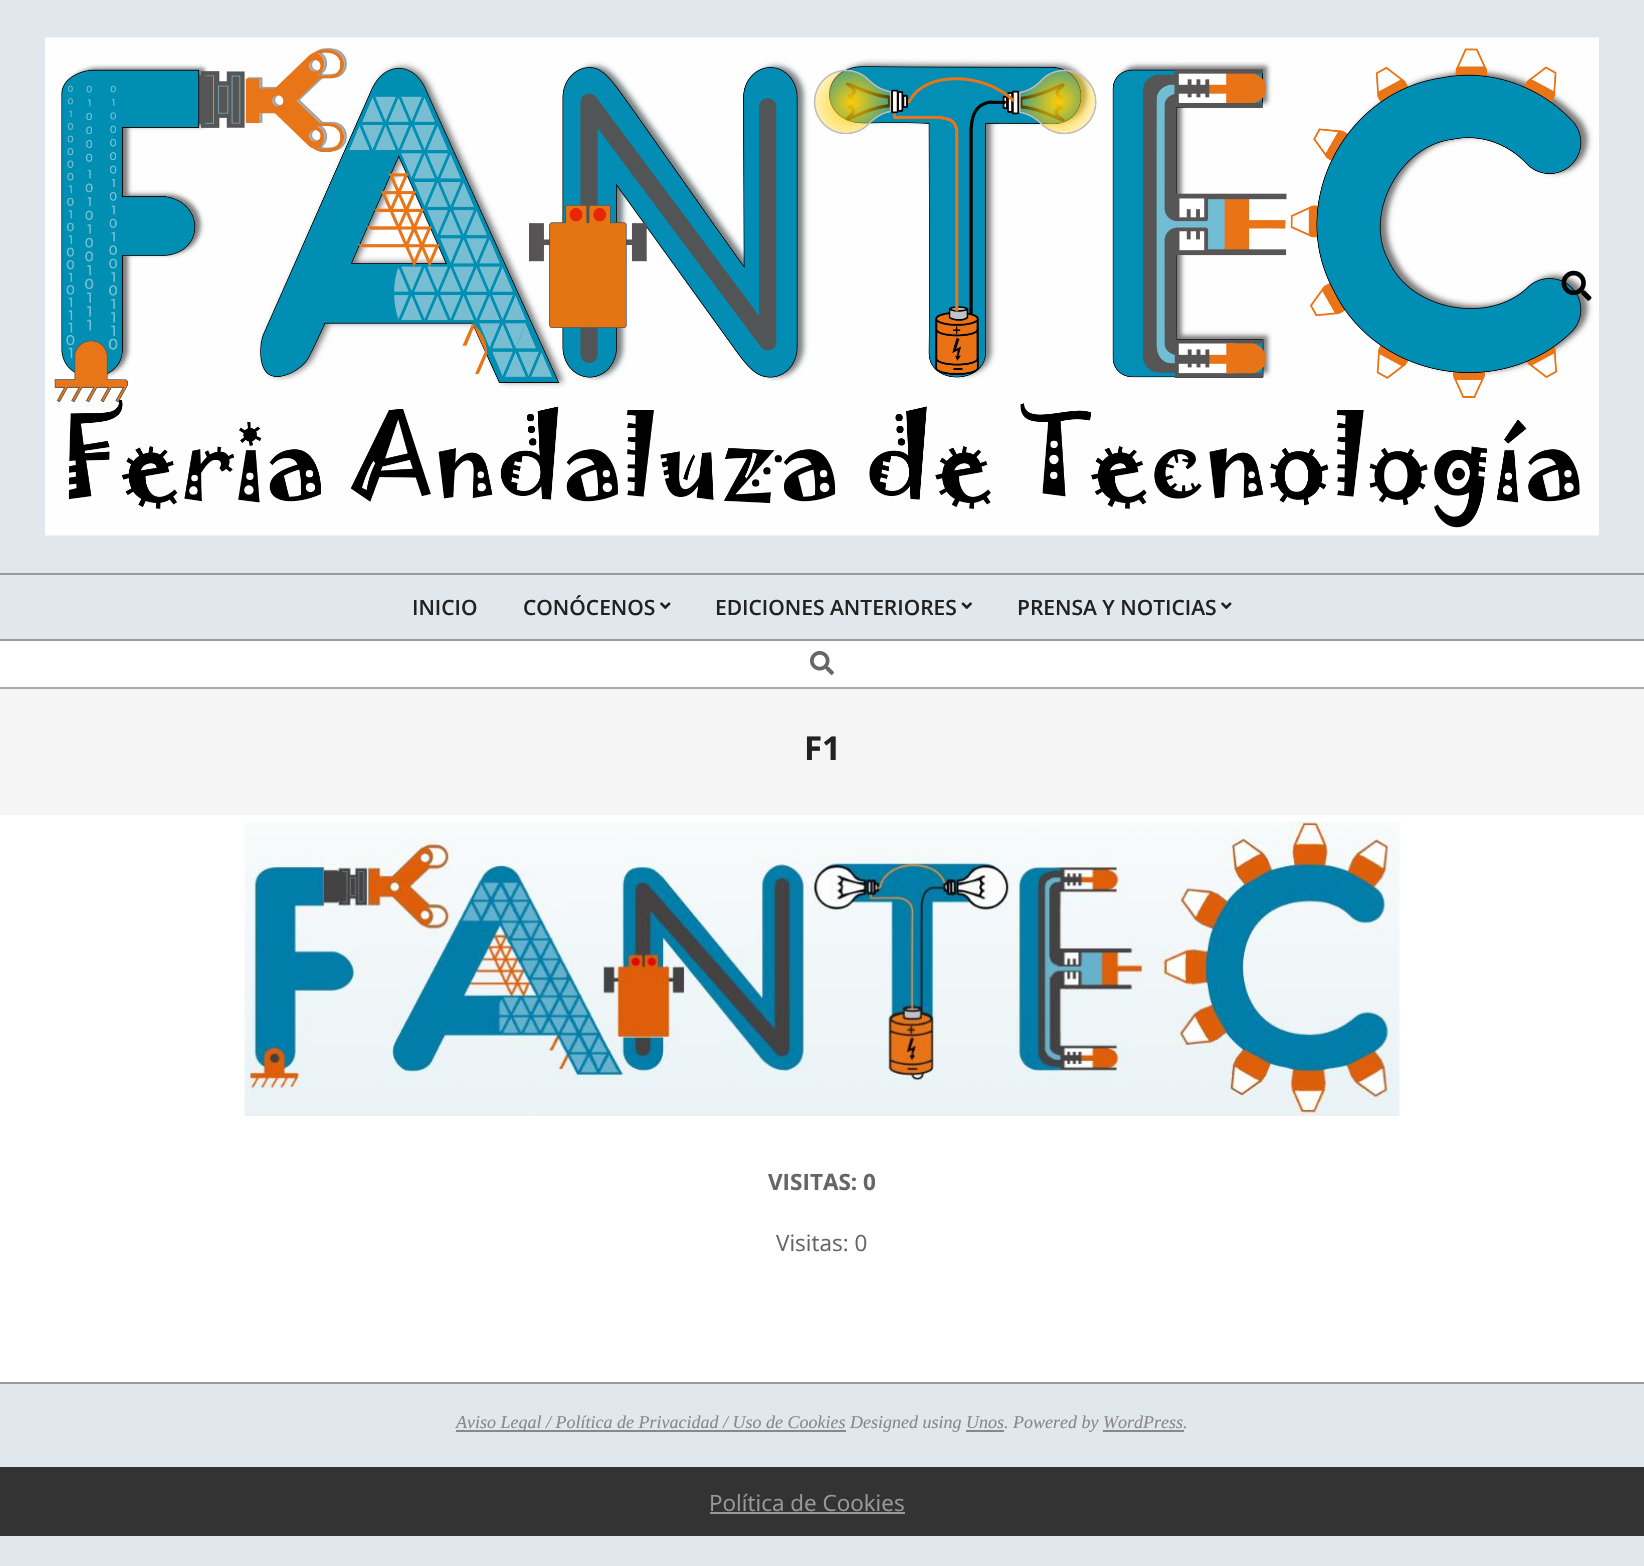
void draw(SkCanvas* canvas) {
    SkPaint paint;
    paint.setAntiAlias(true);
    canvas->clear(0xFFE1E8ED);
    paint.setColor(0xFF979B9F);
    canvas->drawRect(SkRect::MakeXYWH(0, 573, 1644, 2), paint);
    canvas->drawImageRect(SkImages::DeferredFromEncodedData(SkData::MakeFromFileName("img1.png")), SkRect::MakeXYWH(45, 37, 1554, 499), SkSamplingOptions());
    canvas->drawImageRect(SkImages::DeferredFromEncodedData(SkData::MakeFromFileName("img2.png")), SkRect::MakeXYWH(1561, 270, 31, 31), SkSamplingOptions());
    canvas->drawRect(SkRect::MakeXYWH(0, 639, 1644, 2), paint);
    SkFont font1(fontMgr->matchFamilyStyle("Open Sans", SkFontStyle(600, SkFontStyle::kNormal_Width, SkFontStyle::kUpright_Slant)), 21);
    font1.setSubpixel(true);
    paint.setColor(0xFF222222);
    canvas->drawString("INICIO", 412, 615, font1, paint);
    canvas->drawString("CONÓCENOS", 523, 615, font1, paint);
    canvas->drawImageRect(SkImages::DeferredFromEncodedData(SkData::MakeFromFileName("img3.png")), SkRect::MakeXYWH(660, 602, 11, 7), SkSamplingOptions());
    canvas->drawString("EDICIONES ANTERIORES", 715, 615, font1, paint);
    canvas->drawImageRect(SkImages::DeferredFromEncodedData(SkData::MakeFromFileName("img4.png")), SkRect::MakeXYWH(961, 602, 11, 7), SkSamplingOptions());
    canvas->drawString("PRENSA Y NOTICIAS", 1017, 615, font1, paint);
    canvas->drawImageRect(SkImages::DeferredFromEncodedData(SkData::MakeFromFileName("img3.png")), SkRect::MakeXYWH(1221, 602, 11, 7), SkSamplingOptions());
    paint.setColor(0xFFFFFFFF);
    canvas->drawRect(SkRect::MakeXYWH(0, 641, 1644, 46), paint);
    paint.setColor(0xFFABABAB);
    canvas->drawRect(SkRect::MakeXYWH(0, 687, 1644, 2), paint);
    canvas->drawImageRect(SkImages::DeferredFromEncodedData(SkData::MakeFromFileName("img5.png")), SkRect::MakeXYWH(810, 651, 24, 24), SkSamplingOptions());
    paint.setColor(0xFFFFFFFF);
    canvas->drawRect(SkRect::MakeXYWH(0, 815, 1644, 567), paint);
    paint.setColor(0xFFF5F5F5);
    canvas->drawRect(SkRect::MakeXYWH(0, 689, 1644, 126), paint);
    SkFont font2(fontMgr->matchFamilyStyle("Open Sans", SkFontStyle::Bold()), 33);
    font2.setSubpixel(true);
    paint.setColor(0xFF222222);
    canvas->drawString("F1", 804, 760, font2, paint);
    canvas->drawImageRect(SkImages::DeferredFromEncodedData(SkData::MakeFromFileName("img6.png")), SkRect::MakeXYWH(244, 822, 1156, 294), SkSamplingOptions());
    SkFont font3(fontMgr->matchFamilyStyle("Open Sans", SkFontStyle::Bold()), 22.5f);
    font3.setSubpixel(true);
    paint.setColor(0xFF666666);
    canvas->drawString("VISITAS: 0", 768, 1190, font3, paint);
    SkFont font4(fontMgr->matchFamilyStyle("Open Sans", SkFontStyle::Normal()), 22.5f);
    font4.setSubpixel(true);
    canvas->drawString("Visitas: 0", 776, 1251, font4, paint);
    paint.setColor(0xFF979B9F);
    canvas->drawRect(SkRect::MakeXYWH(0, 1382, 1644, 2), paint);
    paint.setColor(0xFF888888);
    canvas->drawRect(SkRect::MakeXYWH(456, 1430, 390, 2), paint);
    SkFont font5(fontMgr->matchFamilyStyle("Liberation Serif", SkFontStyle::Italic()), 18);
    font5.setSubpixel(true);
    canvas->drawString("Aviso Legal / Política de Privacidad / Uso de Cookies Designed using Unos. Powered by WordPress.", 456, 1428, font5, paint);
    canvas->drawRect(SkRect::MakeXYWH(966, 1430, 38, 2), paint);
    canvas->drawRect(SkRect::MakeXYWH(1103, 1430, 81, 2), paint);
    paint.setColor(0xFF333333);
    canvas->drawRect(SkRect::MakeXYWH(0, 1467, 1644, 69), paint);
    paint.setColor(0xFF999999);
    canvas->drawString("Política de Cookies", 709, 1511, font4, paint);
    canvas->drawRect(SkRect::MakeXYWH(710, 1512, 195, 2), paint);
}
